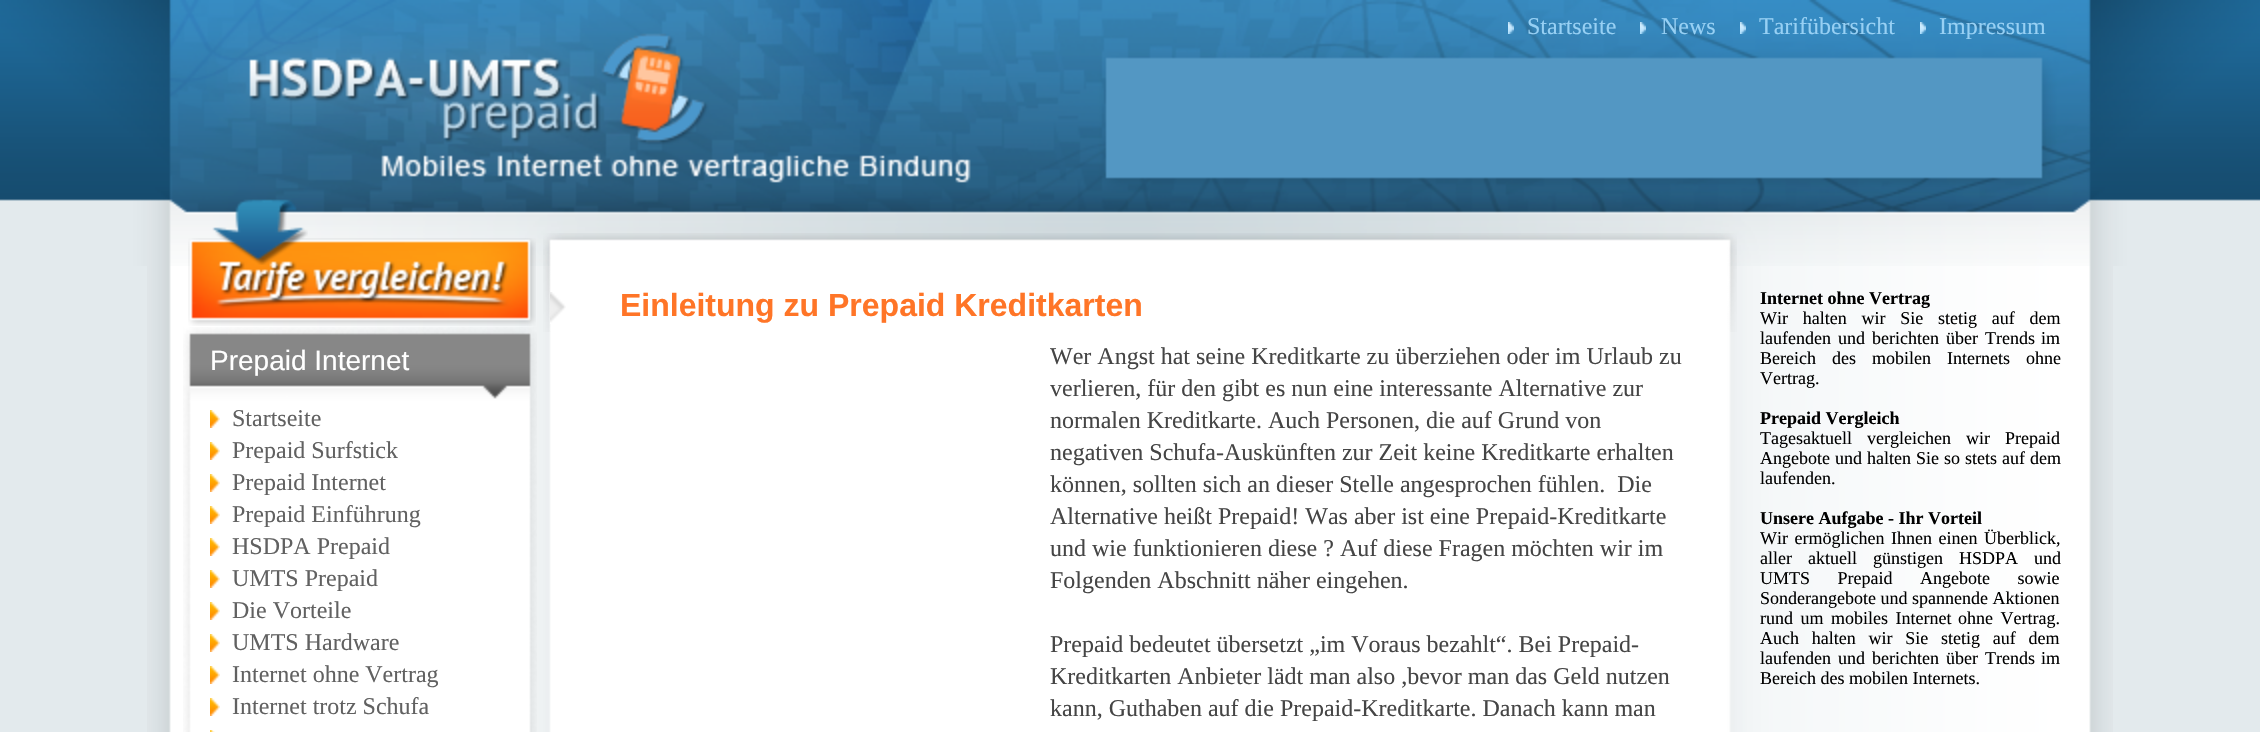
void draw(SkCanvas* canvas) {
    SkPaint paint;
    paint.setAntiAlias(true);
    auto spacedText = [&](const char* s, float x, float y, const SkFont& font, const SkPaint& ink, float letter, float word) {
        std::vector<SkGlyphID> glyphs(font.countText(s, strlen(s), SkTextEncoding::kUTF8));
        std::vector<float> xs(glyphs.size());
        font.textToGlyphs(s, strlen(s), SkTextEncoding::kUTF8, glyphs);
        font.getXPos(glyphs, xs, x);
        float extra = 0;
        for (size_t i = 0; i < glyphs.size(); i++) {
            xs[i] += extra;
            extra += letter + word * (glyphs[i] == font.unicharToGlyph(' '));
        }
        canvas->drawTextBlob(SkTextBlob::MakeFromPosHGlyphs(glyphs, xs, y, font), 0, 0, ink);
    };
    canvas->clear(0xFFE3EAED);
    canvas->drawImageRect(SkImages::DeferredFromEncodedData(SkData::MakeFromFileName("img1.png")), SkRect::MakeXYWH(0, 0, 2260, 266), SkSamplingOptions());
    canvas->drawImageRect(SkImages::DeferredFromEncodedData(SkData::MakeFromFileName("img2.png")), SkRect::MakeXYWH(1508, 22, 6, 12), SkSamplingOptions());
    SkFont font1(fontMgr->matchFamilyStyle("Liberation Serif", SkFontStyle::Normal()), 24);
    font1.setSubpixel(true);
    paint.setColor(0xFF97D0F4);
    canvas->drawString("Startseite", 1527, 34, font1, paint);
    canvas->drawImageRect(SkImages::DeferredFromEncodedData(SkData::MakeFromFileName("img3.png")), SkRect::MakeXYWH(1640, 22, 6, 12), SkSamplingOptions());
    canvas->drawString("News", 1661, 34, font1, paint);
    canvas->drawImageRect(SkImages::DeferredFromEncodedData(SkData::MakeFromFileName("img4.png")), SkRect::MakeXYWH(1740, 22, 6, 12), SkSamplingOptions());
    canvas->drawString("Tarifübersicht", 1759, 34, font1, paint);
    canvas->drawImageRect(SkImages::DeferredFromEncodedData(SkData::MakeFromFileName("img5.png")), SkRect::MakeXYWH(1920, 22, 6, 12), SkSamplingOptions());
    canvas->drawString("Impressum", 1939, 34, font1, paint);
    canvas->drawImageRect(SkImages::DeferredFromEncodedData(SkData::MakeFromFileName("img7.png")), SkRect::MakeXYWH(147, 266, 1966, 466), SkSamplingOptions());
    canvas->drawImageRect(SkImages::DeferredFromEncodedData(SkData::MakeFromFileName("img8.png")), SkRect::MakeXYWH(188, 238, 348, 88), SkSamplingOptions());
    canvas->drawImageRect(SkImages::DeferredFromEncodedData(SkData::MakeFromFileName("img6.png")), SkRect::MakeXYWH(212, 199, 96, 66), SkSamplingOptions());
    canvas->drawImageRect(SkImages::DeferredFromEncodedData(SkData::MakeFromFileName("img9.png")), SkRect::MakeXYWH(183, 327, 354, 405), SkSamplingOptions());
    SkFont font2(fontMgr->matchFamilyStyle("Liberation Sans", SkFontStyle::Normal()), 28);
    font2.setSubpixel(true);
    paint.setColor(0xFFFFFFFF);
    canvas->drawString("Prepaid Internet", 210, 370, font2, paint);
    canvas->drawImageRect(SkImages::DeferredFromEncodedData(SkData::MakeFromFileName("img10.png")), SkRect::MakeXYWH(210, 410, 10, 18), SkSamplingOptions());
    paint.setColor(0xFF616161);
    canvas->drawString("Startseite", 232, 426, font1, paint);
    canvas->drawImageRect(SkImages::DeferredFromEncodedData(SkData::MakeFromFileName("img10.png")), SkRect::MakeXYWH(210, 442, 10, 18), SkSamplingOptions());
    canvas->drawString("Prepaid Surfstick", 232, 458, font1, paint);
    canvas->drawImageRect(SkImages::DeferredFromEncodedData(SkData::MakeFromFileName("img10.png")), SkRect::MakeXYWH(210, 474, 10, 18), SkSamplingOptions());
    canvas->drawString("Prepaid Internet", 232, 490, font1, paint);
    canvas->drawImageRect(SkImages::DeferredFromEncodedData(SkData::MakeFromFileName("img10.png")), SkRect::MakeXYWH(210, 506, 10, 18), SkSamplingOptions());
    canvas->drawString("Prepaid Einführung", 232, 522, font1, paint);
    canvas->drawImageRect(SkImages::DeferredFromEncodedData(SkData::MakeFromFileName("img10.png")), SkRect::MakeXYWH(210, 538, 10, 18), SkSamplingOptions());
    canvas->drawString("HSDPA Prepaid", 232, 554, font1, paint);
    canvas->drawImageRect(SkImages::DeferredFromEncodedData(SkData::MakeFromFileName("img10.png")), SkRect::MakeXYWH(210, 570, 10, 18), SkSamplingOptions());
    canvas->drawString("UMTS Prepaid", 232, 586, font1, paint);
    canvas->drawImageRect(SkImages::DeferredFromEncodedData(SkData::MakeFromFileName("img10.png")), SkRect::MakeXYWH(210, 602, 10, 18), SkSamplingOptions());
    canvas->drawString("Die Vorteile", 232, 618, font1, paint);
    canvas->drawImageRect(SkImages::DeferredFromEncodedData(SkData::MakeFromFileName("img10.png")), SkRect::MakeXYWH(210, 634, 10, 18), SkSamplingOptions());
    canvas->drawString("UMTS Hardware", 232, 650, font1, paint);
    canvas->drawImageRect(SkImages::DeferredFromEncodedData(SkData::MakeFromFileName("img10.png")), SkRect::MakeXYWH(210, 666, 10, 18), SkSamplingOptions());
    canvas->drawString("Internet ohne Vertrag", 232, 682, font1, paint);
    canvas->drawImageRect(SkImages::DeferredFromEncodedData(SkData::MakeFromFileName("img10.png")), SkRect::MakeXYWH(210, 698, 10, 18), SkSamplingOptions());
    canvas->drawString("Internet trotz Schufa", 232, 714, font1, paint);
    canvas->drawImageRect(SkImages::DeferredFromEncodedData(SkData::MakeFromFileName("img11.png")), SkRect::MakeXYWH(210, 730, 5, 2), SkSamplingOptions());
    canvas->drawImageRect(SkImages::DeferredFromEncodedData(SkData::MakeFromFileName("img12.png")), SkRect::MakeXYWH(543, 233, 1194, 99), SkSamplingOptions());
    canvas->drawImageRect(SkImages::DeferredFromEncodedData(SkData::MakeFromFileName("img13.png")), SkRect::MakeXYWH(550, 292, 16, 32), SkSamplingOptions());
    SkFont font3(fontMgr->matchFamilyStyle("Liberation Sans", SkFontStyle::Bold()), 32);
    font3.setSubpixel(true);
    paint.setColor(0xFFFF7527);
    canvas->drawString("Einleitung zu Prepaid Kreditkarten", 620, 316, font3, paint);
    paint.setColor(0xFF454545);
    canvas->drawString("Wer Angst hat seine Kreditkarte zu überziehen oder im Urlaub zu", 1050, 364, font1, paint);
    canvas->drawString("verlieren, für den gibt es nun eine interessante Alternative zur", 1050, 396, font1, paint);
    canvas->drawString("normalen Kreditkarte. Auch Personen, die auf Grund von", 1050, 428, font1, paint);
    canvas->drawString("negativen Schufa-Auskünften zur Zeit keine Kreditkarte erhalten", 1050, 460, font1, paint);
    canvas->drawString("können, sollten sich an dieser Stelle angesprochen fühlen.  Die", 1050, 492, font1, paint);
    canvas->drawString("Alternative heißt Prepaid! Was aber ist eine Prepaid-Kreditkarte", 1050, 524, font1, paint);
    canvas->drawString("und wie funktionieren diese ? Auf diese Fragen möchten wir im", 1050, 556, font1, paint);
    canvas->drawString("Folgenden Abschnitt näher eingehen.", 1050, 588, font1, paint);
    canvas->drawString("Prepaid bedeutet übersetzt „im Voraus bezahlt“. Bei Prepaid-", 1050, 652, font1, paint);
    canvas->drawString("Kreditkarten Anbieter lädt man also ,bevor man das Geld nutzen", 1050, 684, font1, paint);
    canvas->drawString("kann, Guthaben auf die Prepaid-Kreditkarte. Danach kann man", 1050, 716, font1, paint);
    SkFont font4(fontMgr->matchFamilyStyle("Liberation Serif", SkFontStyle::Bold()), 18);
    font4.setSubpixel(true);
    paint.setColor(0xFF000000);
    canvas->drawString("Internet ohne Vertrag", 1760, 304, font4, paint);
    SkFont font5(fontMgr->matchFamilyStyle("Liberation Serif", SkFontStyle::Normal()), 18);
    font5.setSubpixel(true);
    spacedText("Wir halten wir Sie stetig auf dem", 1760, 324, font5, paint, 0, 10.25f);
    spacedText("laufenden und berichten über Trends", 1760, 344, font5, paint, 0, 2.5f);
    canvas->drawString("im", 2041, 344, font5, paint);
    spacedText("Bereich des mobilen Internets ohne", 1760, 364, font5, paint, 0, 11.5f);
    canvas->drawString("Vertrag.", 1760, 384, font5, paint);
    canvas->drawString("Prepaid Vergleich", 1760, 424, font4, paint);
    spacedText("Tagesaktuell vergleichen wir Prepaid", 1760, 444, font5, paint, 0, 10.5f);
    spacedText("Angebote und halten Sie so stets auf dem", 1760, 464, font5, paint, 0, 0.5f);
    canvas->drawString("laufenden.", 1760, 484, font5, paint);
    canvas->drawString("Unsere Aufgabe - Ihr Vorteil", 1760, 524, font4, paint);
    spacedText("Wir ermöglichen Ihnen einen Überblick,", 1760, 544, font5, paint, 0, 2);
    spacedText("aller aktuell günstigen HSDPA und", 1760, 564, font5, paint, 0, 11.5f);
    spacedText("UMTS Prepaid Angebote sowie", 1760, 584, font5, paint, 0, 23);
    canvas->drawString("Sonderangebote und spannende Aktionen", 1760, 604, font5, paint);
    spacedText("rund um mobiles Internet", 1760, 624, font5, paint, 0, 3);
    spacedText("ohne Vertrag.", 1958, 624, font5, paint, 0, 3);
    spacedText("Auch halten wir Sie stetig auf dem", 1760, 644, font5, paint, 0, 8.25f);
    spacedText("laufenden und berichten über Trends", 1760, 664, font5, paint, 0, 2.5f);
    canvas->drawString("im", 2041, 664, font5, paint);
    canvas->drawString("Bereich des mobilen Internets.", 1760, 684, font5, paint);
}
